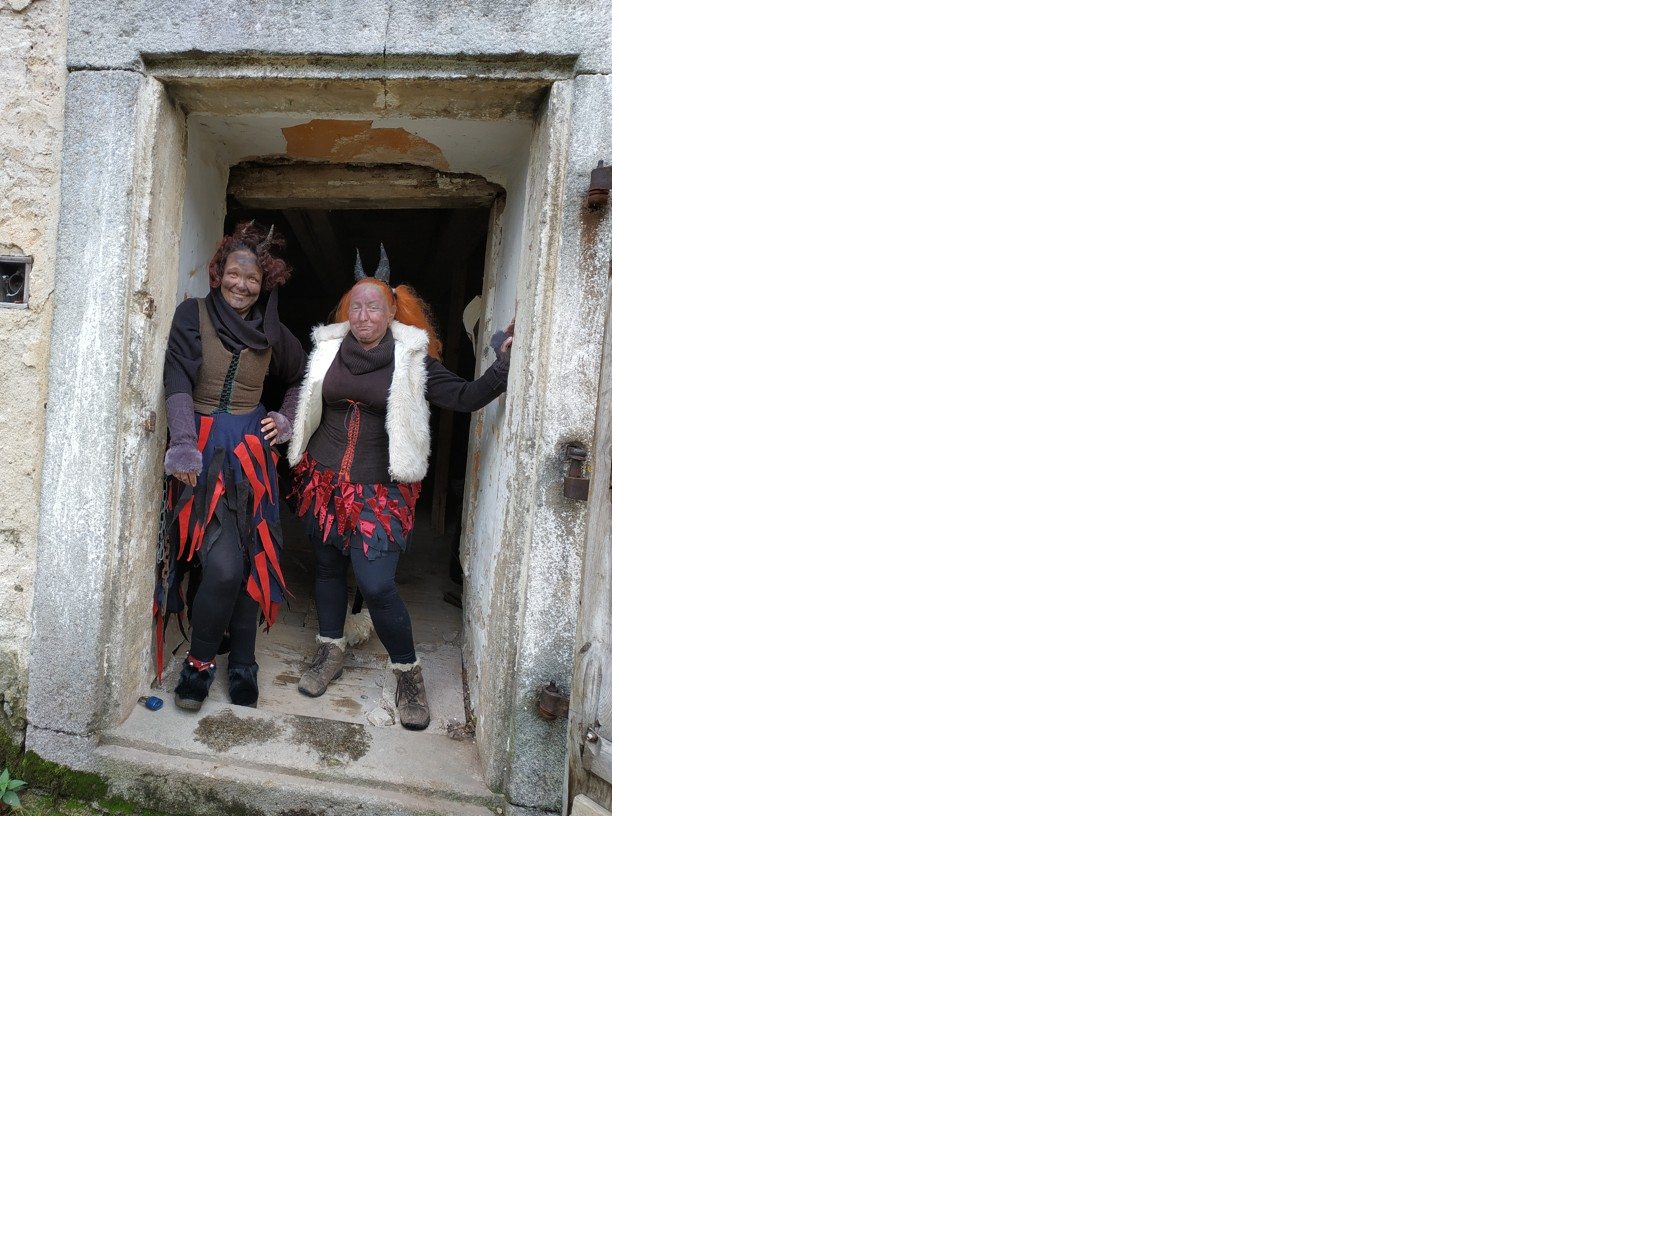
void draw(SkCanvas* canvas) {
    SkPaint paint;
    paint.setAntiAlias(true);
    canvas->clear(0xFFFFFFFF);
    canvas->drawImageRect(SkImages::DeferredFromEncodedData(SkData::MakeFromFileName("img1.png")), SkRect::MakeXYWH(0, 0, 612, 816), SkSamplingOptions());
}
